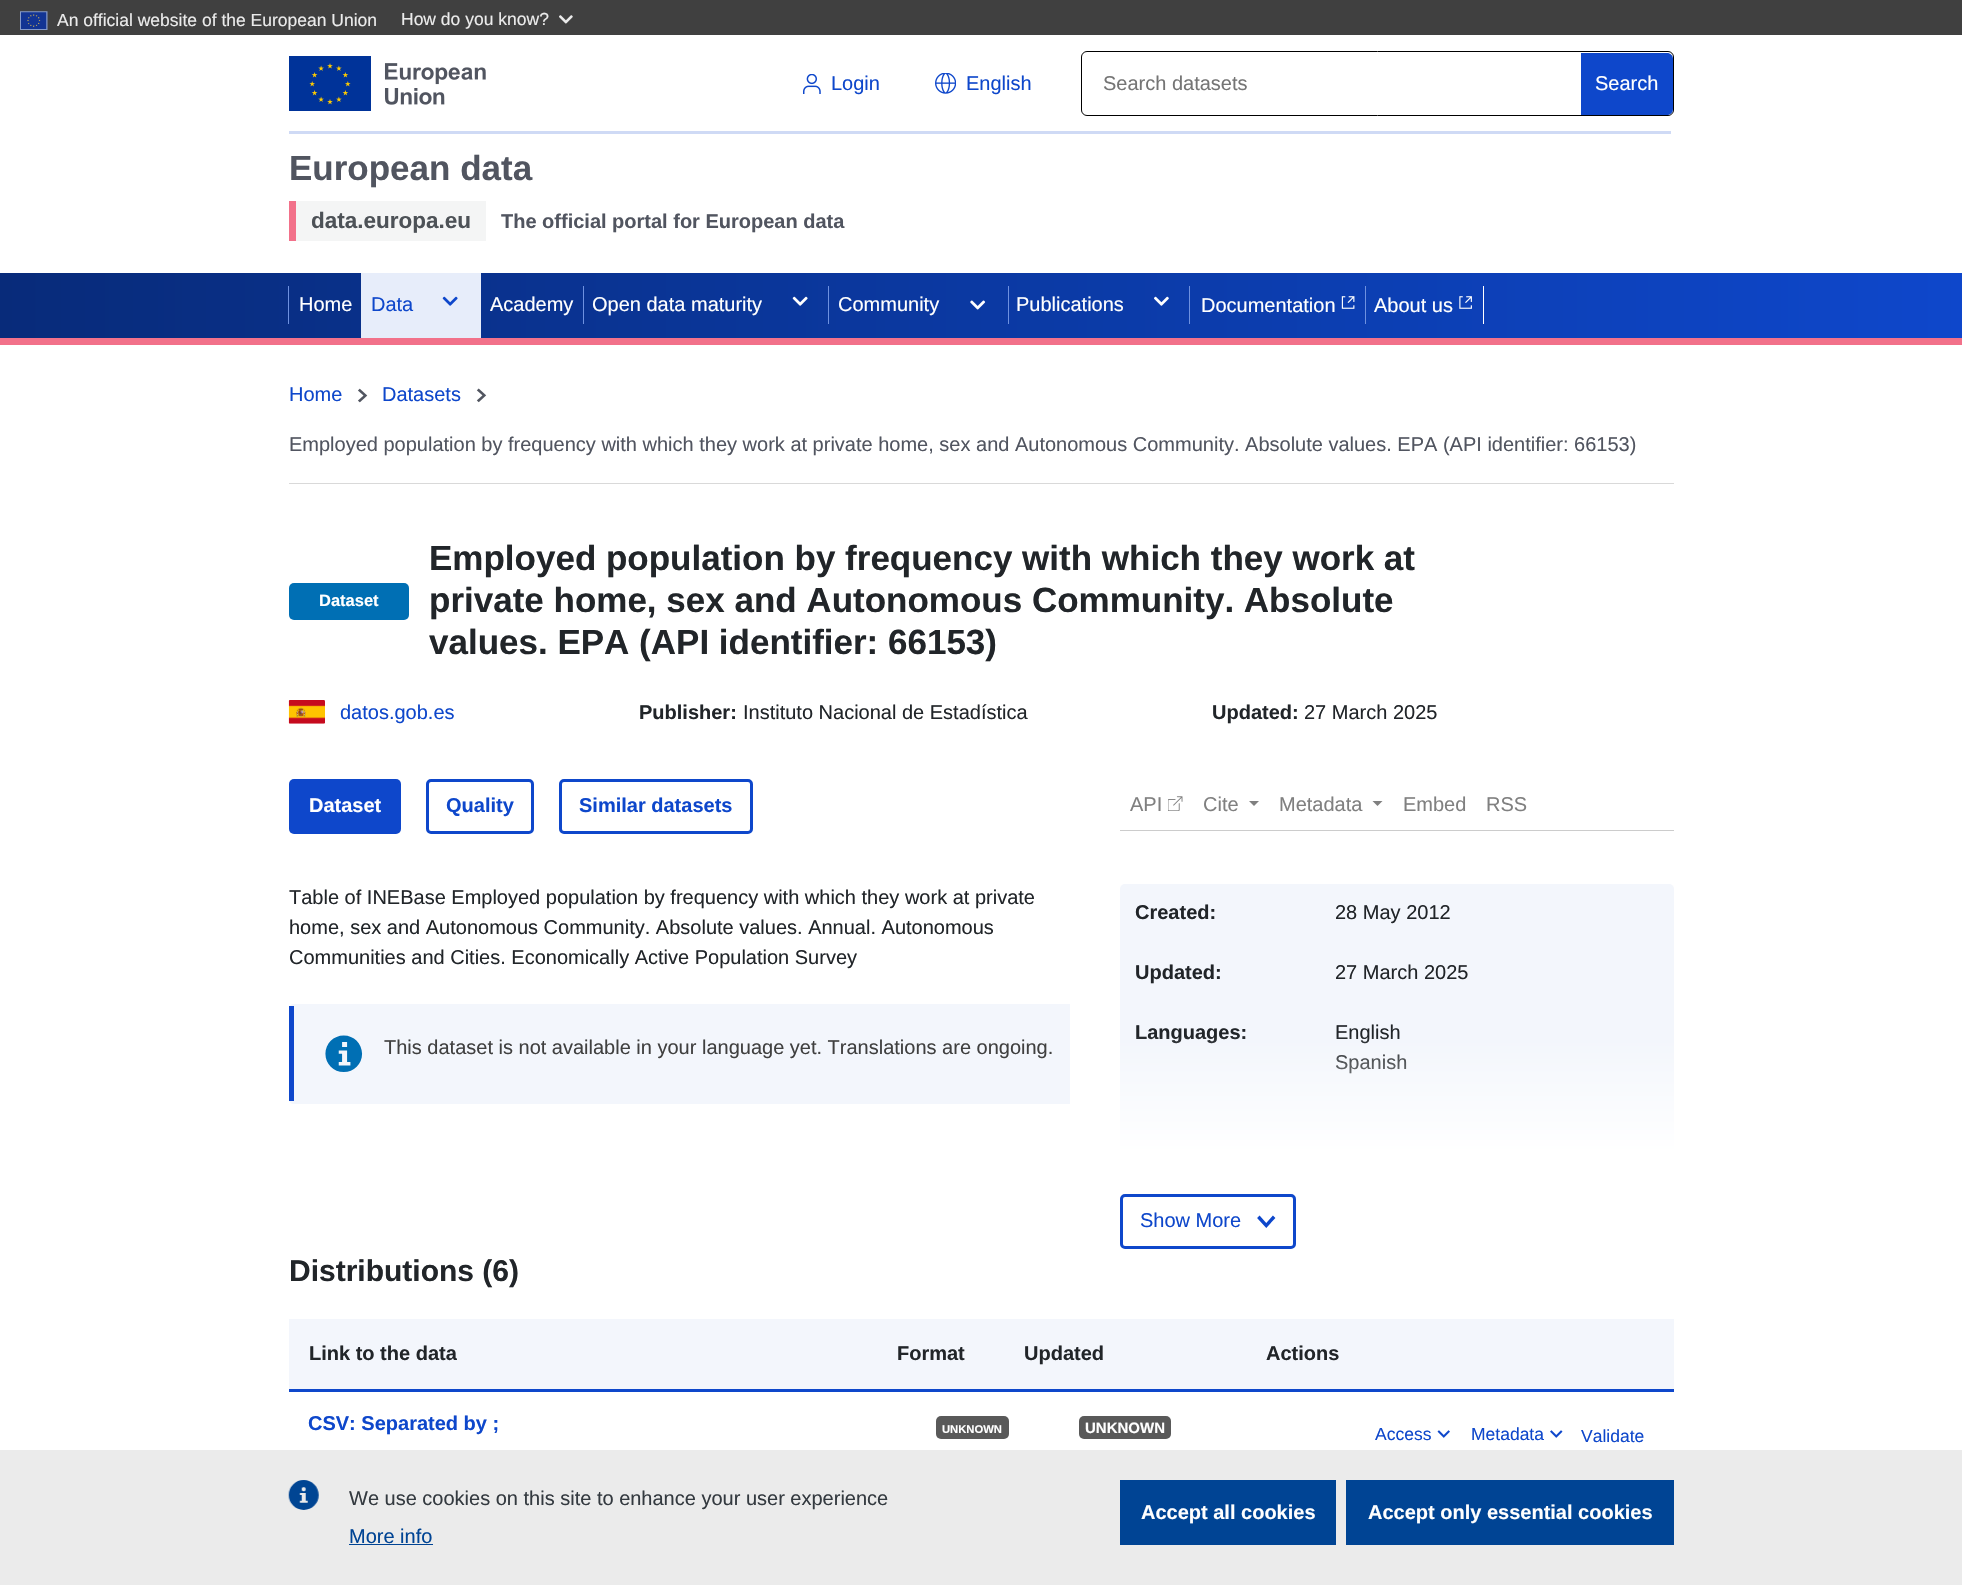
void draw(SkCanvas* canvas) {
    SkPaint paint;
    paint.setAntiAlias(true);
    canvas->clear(0xFFFFFFFF);
    paint.setColor(0xFF404040);
    canvas->drawRect(SkRect::MakeXYWH(0, 0, 1962, 35), paint);
    canvas->drawImageRect(SkImages::DeferredFromEncodedData(SkData::MakeFromFileName("img1.png")), SkRect::MakeXYWH(20, 11, 28, 19), SkSamplingOptions());
    SkFont font1(fontMgr->matchFamilyStyle("Liberation Sans", SkFontStyle::Normal()), 17.5f);
    font1.setSubpixel(true);
    paint.setColor(0xFFEBEBEB);
    canvas->drawString("An official website of the European Union", 57, 26, font1, paint);
    canvas->drawString("How do you know?", 401, 25, font1, paint);
    canvas->drawImageRect(SkImages::DeferredFromEncodedData(SkData::MakeFromFileName("img2.png")), SkRect::MakeXYWH(559, 15, 14, 9), SkSamplingOptions());
    canvas->drawImageRect(SkImages::DeferredFromEncodedData(SkData::MakeFromFileName("img3.png")), SkRect::MakeXYWH(289, 56, 197, 55), SkSamplingOptions());
    canvas->drawImageRect(SkImages::DeferredFromEncodedData(SkData::MakeFromFileName("img4.png")), SkRect::MakeXYWH(803, 74, 18, 20), SkSamplingOptions());
    SkFont font2(fontMgr->matchFamilyStyle("Liberation Sans", SkFontStyle::Normal()), 20);
    font2.setSubpixel(true);
    paint.setColor(0xFF0E47CB);
    canvas->drawString("Login", 831, 90, font2, paint);
    canvas->drawImageRect(SkImages::DeferredFromEncodedData(SkData::MakeFromFileName("img5.png")), SkRect::MakeXYWH(935, 73, 21, 21), SkSamplingOptions());
    canvas->drawString("English", 966, 90, font2, paint);
    paint.setStyle(SkPaint::kStroke_Style);
    paint.setStrokeWidth(1);
    paint.setColor(0xFF000000);
    canvas->drawRoundRect(SkRect::MakeXYWH(1081.5f, 51.5f, 592, 64), 5.5f, 5.5f, paint);
    paint.setStyle(SkPaint::kFill_Style);
    paint.setColor(0xFF757575);
    canvas->drawString("Search datasets", 1103, 90, font2, paint);
    paint.setColor(0xFF0E47CB);
    canvas->drawPath(SkPathBuilder().moveTo(1581, 53).lineTo(1667, 53).cubicTo(1670.5f, 53, 1673, 55.5f, 1673, 59).lineTo(1673, 109).cubicTo(1673, 112.5f, 1670.5f, 115, 1667, 115).lineTo(1581, 115).close().detach(), paint);
    paint.setColor(0xFFFFFFFF);
    canvas->drawString("Search", 1595, 90, font2, paint);
    paint.setColor(0xFFCFDAF5);
    canvas->drawRect(SkRect::MakeXYWH(289, 131, 1382, 3), paint);
    SkFont font3(fontMgr->matchFamilyStyle("Liberation Sans", SkFontStyle::Bold()), 35);
    font3.setSubpixel(true);
    paint.setColor(0xFF515560);
    canvas->drawString("European data", 289, 180, font3, paint);
    paint.setColor(0xFFF4F5F5);
    canvas->drawRect(SkRect::MakeXYWH(296, 201, 190, 40), paint);
    paint.setColor(0xFFF2718A);
    canvas->drawRect(SkRect::MakeXYWH(289, 201, 7, 40), paint);
    SkFont font4(fontMgr->matchFamilyStyle("Liberation Sans", SkFontStyle::Bold()), 22.5f);
    font4.setSubpixel(true);
    paint.setColor(0xFF4D5257);
    canvas->drawString("data.europa.eu", 311, 228, font4, paint);
    SkFont font5(fontMgr->matchFamilyStyle("Liberation Sans", SkFontStyle::Bold()), 20);
    font5.setSubpixel(true);
    paint.setColor(0xFF515560);
    canvas->drawString("The official portal for European data", 501, 228, font5, paint);
    {
        const SkColor colors[] = {0xFF082B7A, 0xFF0E47CB};
        const float stops[] = {0, 1};
        const SkPoint ends[] = {{0, 305}, {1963, 305}};
        paint.setShader(SkGradientShader::MakeLinear(ends, colors, stops, 2, SkTileMode::kClamp));
        paint.setAlpha(255);
    }
    canvas->drawRect(SkRect::MakeXYWH(0, 273, 1962, 65), paint);
    paint.setShader(nullptr);
    paint.setColor(0xFFF2718A);
    canvas->drawRect(SkRect::MakeXYWH(0, 338, 1962, 7), paint);
    paint.setColor(0xFF6E91E0);
    canvas->drawRect(SkRect::MakeXYWH(288, 286, 1, 38), paint);
    paint.setColor(0xFFFFFFFF);
    canvas->drawString("Home", 299, 311, font2, paint);
    paint.setColor(0xFFE7EDFA);
    canvas->drawRect(SkRect::MakeXYWH(361, 273, 120, 65), paint);
    paint.setColor(0xFF0E47CB);
    canvas->drawString("Data", 371, 311, font2, paint);
    canvas->drawImageRect(SkImages::DeferredFromEncodedData(SkData::MakeFromFileName("img6.png")), SkRect::MakeXYWH(442, 296, 16, 10), SkSamplingOptions());
    paint.setColor(0xFF6E91E0);
    canvas->drawRect(SkRect::MakeXYWH(583, 286, 1, 38), paint);
    paint.setColor(0xFFFFFFFF);
    canvas->drawString("Academy", 490, 311, font2, paint);
    canvas->drawString("Open data maturity", 592, 311, font2, paint);
    canvas->drawImageRect(SkImages::DeferredFromEncodedData(SkData::MakeFromFileName("img7.png")), SkRect::MakeXYWH(792, 296, 16, 10), SkSamplingOptions());
    paint.setColor(0xFF6E91E0);
    canvas->drawRect(SkRect::MakeXYWH(1008, 286, 1, 38), paint);
    canvas->drawRect(SkRect::MakeXYWH(828, 286, 1, 38), paint);
    paint.setColor(0xFFFFFFFF);
    canvas->drawString("Community", 838, 311, font2, paint);
    canvas->drawImageRect(SkImages::DeferredFromEncodedData(SkData::MakeFromFileName("img8.png")), SkRect::MakeXYWH(970, 300, 16, 10), SkSamplingOptions());
    canvas->drawString("Publications", 1016, 311, font2, paint);
    canvas->drawImageRect(SkImages::DeferredFromEncodedData(SkData::MakeFromFileName("img9.png")), SkRect::MakeXYWH(1154, 296, 15, 10), SkSamplingOptions());
    paint.setColor(0xFF6E91E0);
    canvas->drawRect(SkRect::MakeXYWH(1365, 286, 1, 38), paint);
    canvas->drawRect(SkRect::MakeXYWH(1189, 286, 1, 38), paint);
    paint.setColor(0xFFFFFFFF);
    canvas->drawString("Documentation", 1201, 312, font2, paint);
    canvas->drawImageRect(SkImages::DeferredFromEncodedData(SkData::MakeFromFileName("img10.png")), SkRect::MakeXYWH(1341, 296, 14, 13), SkSamplingOptions());
    canvas->drawRect(SkRect::MakeXYWH(1483, 286, 1, 38), paint);
    canvas->drawString("About us", 1374, 312, font2, paint);
    canvas->drawImageRect(SkImages::DeferredFromEncodedData(SkData::MakeFromFileName("img11.png")), SkRect::MakeXYWH(1459, 296, 13, 13), SkSamplingOptions());
    paint.setColor(0xFF0E47CB);
    canvas->drawString("Home", 289, 401, font2, paint);
    canvas->drawImageRect(SkImages::DeferredFromEncodedData(SkData::MakeFromFileName("img12.png")), SkRect::MakeXYWH(358, 388, 10, 15), SkSamplingOptions());
    canvas->drawString("Datasets", 382, 401, font2, paint);
    canvas->drawImageRect(SkImages::DeferredFromEncodedData(SkData::MakeFromFileName("img13.png")), SkRect::MakeXYWH(476, 388, 11, 15), SkSamplingOptions());
    paint.setColor(0xFF515560);
    canvas->drawString("Employed population by frequency with which they work at private home, sex and Autonomous Community. Absolute values. EPA (API identifier: 66153)", 289, 451, font2, paint);
    paint.setColor(0xFFD9D9D9);
    canvas->drawRect(SkRect::MakeXYWH(289, 483, 1385, 1), paint);
    paint.setColor(0xFF006FB4);
    canvas->drawRoundRect(SkRect::MakeXYWH(289, 583, 120, 37), 5, 5, paint);
    SkFont font6(fontMgr->matchFamilyStyle("Liberation Sans", SkFontStyle::Bold()), 16.5f);
    font6.setSubpixel(true);
    paint.setColor(0xFFFFFFFF);
    canvas->drawString("Dataset", 319, 606, font6, paint);
    paint.setColor(0xFF212529);
    canvas->drawString("Employed population by frequency with which they work at", 429, 570, font3, paint);
    canvas->drawString("private home, sex and Autonomous Community. Absolute", 429, 612, font3, paint);
    canvas->drawString("values. EPA (API identifier: 66153)", 429, 654, font3, paint);
    canvas->drawImageRect(SkImages::DeferredFromEncodedData(SkData::MakeFromFileName("img14.png")), SkRect::MakeXYWH(288, 700, 37, 24), SkSamplingOptions());
    paint.setColor(0xFF0E47CB);
    canvas->drawString("datos.gob.es", 340, 719, font2, paint);
    paint.setColor(0xFF212529);
    canvas->drawString("Publisher:", 639, 719, font5, paint);
    canvas->drawString("Instituto Nacional de Estadística", 743, 719, font2, paint);
    canvas->drawString("Updated:", 1212, 719, font5, paint);
    canvas->drawString("27 March 2025", 1304, 719, font2, paint);
    paint.setColor(0xFF0E47CB);
    canvas->drawRoundRect(SkRect::MakeXYWH(289, 779, 112, 55), 5, 5, paint);
    paint.setColor(0xFFFFFFFF);
    canvas->drawString("Dataset", 309, 812, font5, paint);
    paint.setStyle(SkPaint::kStroke_Style);
    paint.setStrokeWidth(3);
    paint.setColor(0xFF0E47CB);
    canvas->drawRoundRect(SkRect::MakeXYWH(427.5f, 780.5f, 105, 52), 3.5f, 3.5f, paint);
    paint.setStyle(SkPaint::kFill_Style);
    canvas->drawString("Quality", 446, 812, font5, paint);
    paint.setStyle(SkPaint::kStroke_Style);
    canvas->drawRoundRect(SkRect::MakeXYWH(560.5f, 780.5f, 191, 52), 3.5f, 3.5f, paint);
    paint.setStyle(SkPaint::kFill_Style);
    canvas->drawString("Similar datasets", 579, 812, font5, paint);
    paint.setColor(0xFFCCCCCC);
    canvas->drawRect(SkRect::MakeXYWH(1120, 830, 554, 1), paint);
    paint.setColor(0xFF808080);
    canvas->drawString("API", 1130, 811, font2, paint);
    canvas->drawImageRect(SkImages::DeferredFromEncodedData(SkData::MakeFromFileName("img15.png")), SkRect::MakeXYWH(1168, 796, 15, 15), SkSamplingOptions());
    canvas->drawString("Cite", 1203, 811, font2, paint);
    canvas->drawPath(SkPathBuilder().moveTo(1249, 801).lineTo(1259, 801).lineTo(1254, 806).close().detach(), paint);
    canvas->drawString("Metadata", 1279, 811, font2, paint);
    canvas->drawPath(SkPathBuilder().moveTo(1372.5f, 801).lineTo(1382.5f, 801).lineTo(1377.5f, 806).close().detach(), paint);
    canvas->drawString("Embed", 1403, 811, font2, paint);
    canvas->drawString("RSS", 1486, 811, font2, paint);
    paint.setColor(0xFF212529);
    canvas->drawString("Table of INEBase Employed population by frequency with which they work at private", 289, 904, font2, paint);
    canvas->drawString("home, sex and Autonomous Community. Absolute values. Annual. Autonomous", 289, 934, font2, paint);
    canvas->drawString("Communities and Cities. Economically Active Population Survey", 289, 964, font2, paint);
    paint.setColor(0xFFF3F6FC);
    canvas->drawPath(SkPathBuilder().moveTo(294, 1004).lineTo(1070, 1004).lineTo(1070, 1104).lineTo(294, 1104).cubicTo(291, 1104, 289, 1102, 289, 1099).lineTo(289, 1009).cubicTo(289, 1006, 291, 1004, 294, 1004).close().detach(), paint);
    paint.setColor(0xFF0E47CB);
    canvas->drawRect(SkRect::MakeXYWH(289, 1006, 5, 95), paint);
    canvas->drawImageRect(SkImages::DeferredFromEncodedData(SkData::MakeFromFileName("img16.png")), SkRect::MakeXYWH(325, 1035, 38, 37), SkSamplingOptions());
    paint.setColor(0xFF404040);
    canvas->drawString("This dataset is not available in your language yet. Translations are ongoing.", 384, 1054, font2, paint);
    paint.setColor(0xFFF3F6FC);
    canvas->drawRoundRect(SkRect::MakeXYWH(1120, 884, 554, 275), 5, 5, paint);
    paint.setColor(0xFF212529);
    canvas->drawString("Created:", 1135, 919, font5, paint);
    canvas->drawString("28 May 2012", 1335, 919, font2, paint);
    canvas->drawString("Updated:", 1135, 979, font5, paint);
    canvas->drawString("27 March 2025", 1335, 979, font2, paint);
    canvas->drawString("Languages:", 1135, 1039, font5, paint);
    canvas->drawString("English", 1335, 1039, font2, paint);
    canvas->drawString("Spanish", 1335, 1069, font2, paint);
    {
        const SkColor colors[] = {0x00FFFFFF, 0xFFFFFFFF};
        const float stops[] = {0, 1};
        const SkPoint ends[] = {{1397, 1034}, {1397, 1159}};
        paint.setShader(SkGradientShader::MakeLinear(ends, colors, stops, 2, SkTileMode::kClamp));
        paint.setAlpha(255);
    }
    canvas->drawRect(SkRect::MakeXYWH(1120, 1037, 554, 122), paint);
    paint.setStyle(SkPaint::kStroke_Style);
    paint.setShader(nullptr);
    paint.setColor(0xFF0E47CB);
    canvas->drawRoundRect(SkRect::MakeXYWH(1121.5f, 1195.5f, 173, 52), 3.5f, 3.5f, paint);
    paint.setStyle(SkPaint::kFill_Style);
    canvas->drawString("Show More", 1140, 1227, font2, paint);
    canvas->drawImageRect(SkImages::DeferredFromEncodedData(SkData::MakeFromFileName("img17.png")), SkRect::MakeXYWH(1257, 1215, 19, 13), SkSamplingOptions());
    SkFont font7(fontMgr->matchFamilyStyle("Liberation Sans", SkFontStyle::Bold()), 30);
    font7.setSubpixel(true);
    paint.setColor(0xFF212529);
    canvas->drawString("Distributions (6)", 289, 1281, font7, paint);
    paint.setColor(0xFFF3F6FC);
    canvas->drawRect(SkRect::MakeXYWH(289, 1319, 1385, 70), paint);
    paint.setColor(0xFF0E47CB);
    canvas->drawRect(SkRect::MakeXYWH(289, 1389, 1385, 3), paint);
    paint.setColor(0xFF212529);
    canvas->drawString("Link to the data", 309, 1360, font5, paint);
    canvas->drawString("Format", 897, 1360, font5, paint);
    canvas->drawString("Updated", 1024, 1360, font5, paint);
    canvas->drawString("Actions", 1266, 1360, font5, paint);
    paint.setColor(0xFF0E47CB);
    canvas->drawString("CSV: Separated by ;", 308, 1430, font5, paint);
    paint.setColor(0xFF595959);
    canvas->drawRoundRect(SkRect::MakeXYWH(936, 1416, 73, 23), 5, 5, paint);
    SkFont font8(fontMgr->matchFamilyStyle("Liberation Sans", SkFontStyle::Bold()), 11.25f);
    font8.setSubpixel(true);
    paint.setColor(0xFFFFFFFF);
    canvas->drawString("UNKNOWN", 942, 1433, font8, paint);
    paint.setColor(0xFF595959);
    canvas->drawRoundRect(SkRect::MakeXYWH(1079, 1416, 92, 23), 5, 5, paint);
    SkFont font9(fontMgr->matchFamilyStyle("Liberation Sans", SkFontStyle::Bold()), 15);
    font9.setSubpixel(true);
    paint.setColor(0xFFFFFFFF);
    canvas->drawString("UNKNOWN", 1085, 1433, font9, paint);
    paint.setColor(0xFF0E47CB);
    canvas->drawString("Access", 1375, 1440, font1, paint);
    canvas->drawImageRect(SkImages::DeferredFromEncodedData(SkData::MakeFromFileName("img18.png")), SkRect::MakeXYWH(1437, 1430, 13, 8), SkSamplingOptions());
    canvas->drawString("Metadata", 1471, 1440, font1, paint);
    canvas->drawImageRect(SkImages::DeferredFromEncodedData(SkData::MakeFromFileName("img19.png")), SkRect::MakeXYWH(1550, 1430, 13, 8), SkSamplingOptions());
    canvas->drawString("Validate", 1581, 1442, font1, paint);
    paint.setColor(0xFFEBEBEB);
    canvas->drawRect(SkRect::MakeXYWH(0, 1450, 1962, 135), paint);
    canvas->drawImageRect(SkImages::DeferredFromEncodedData(SkData::MakeFromFileName("img20.png")), SkRect::MakeXYWH(288, 1480, 31, 30), SkSamplingOptions());
    paint.setColor(0xFF343A40);
    canvas->drawString("We use cookies on this site to enhance your user experience", 349, 1505, font2, paint);
    paint.setColor(0xFF004494);
    canvas->drawString("More info", 349, 1543, font2, paint);
    canvas->drawRect(SkRect::MakeXYWH(349, 1544, 84, 1), paint);
    canvas->drawRect(SkRect::MakeXYWH(1120, 1480, 216, 65), paint);
    paint.setColor(0xFFFFFFFF);
    canvas->drawString("Accept all cookies", 1141, 1519, font5, paint);
    paint.setColor(0xFF004494);
    canvas->drawRect(SkRect::MakeXYWH(1346, 1480, 328, 65), paint);
    paint.setColor(0xFFFFFFFF);
    canvas->drawString("Accept only essential cookies", 1368, 1519, font5, paint);
}
